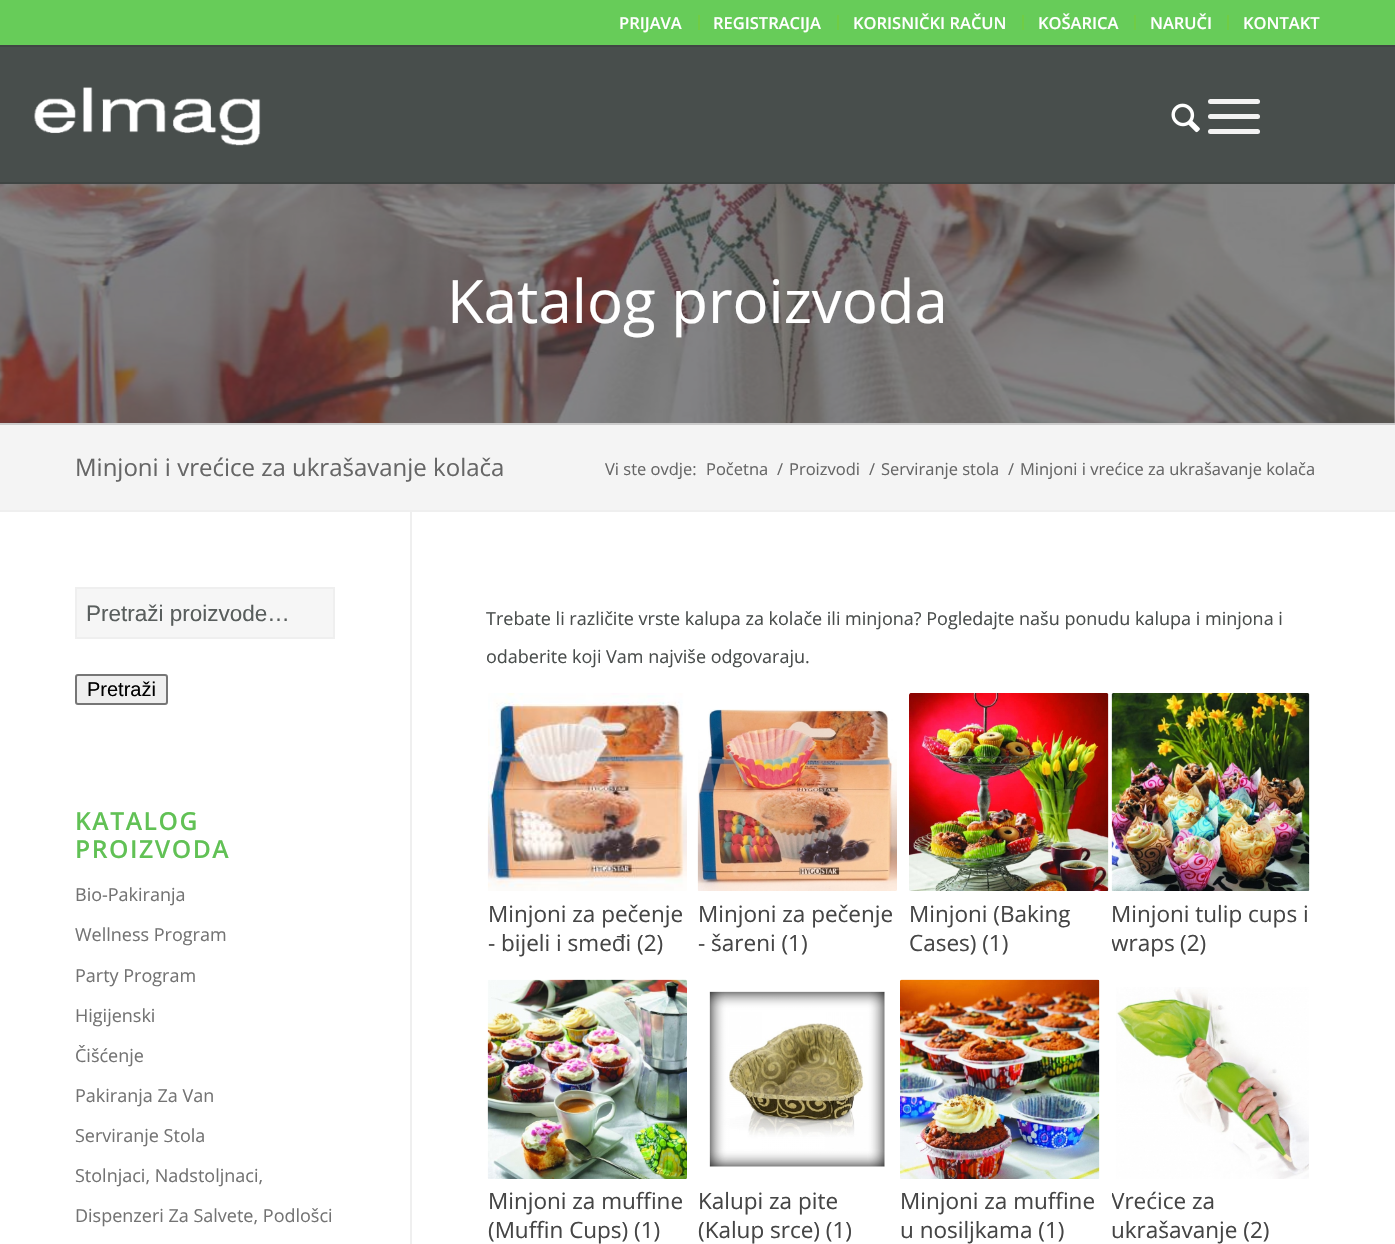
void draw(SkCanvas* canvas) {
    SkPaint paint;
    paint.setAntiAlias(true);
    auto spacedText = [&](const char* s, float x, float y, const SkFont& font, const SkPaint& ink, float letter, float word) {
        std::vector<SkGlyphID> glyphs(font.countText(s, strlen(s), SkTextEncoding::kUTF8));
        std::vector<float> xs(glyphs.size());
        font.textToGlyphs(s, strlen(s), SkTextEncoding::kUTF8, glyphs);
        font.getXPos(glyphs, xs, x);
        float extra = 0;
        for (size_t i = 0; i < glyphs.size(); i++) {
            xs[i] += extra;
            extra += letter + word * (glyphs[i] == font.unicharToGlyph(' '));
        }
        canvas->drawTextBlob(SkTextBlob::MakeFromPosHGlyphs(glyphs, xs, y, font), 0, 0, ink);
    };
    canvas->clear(0xFFFFFFFF);
    paint.setColor(0xFF67CC59);
    canvas->drawRect(SkRect::MakeXYWH(0, 0, 1395, 45), paint);
    paint.setColor(0xFF404543);
    canvas->drawRect(SkRect::MakeXYWH(0, 45, 1395, 2), paint);
    paint.setColor(0xFF70CC45);
    canvas->drawRect(SkRect::MakeXYWH(698, 15, 2, 15), paint);
    SkFont font1(fontMgr->matchFamilyStyle("Open Sans", SkFontStyle(600, SkFontStyle::kNormal_Width, SkFontStyle::kUpright_Slant)), 16.5f);
    font1.setSubpixel(true);
    paint.setColor(0xFFFFFFFF);
    canvas->drawString("PRIJAVA", 619, 29, font1, paint);
    paint.setColor(0xFF70CC45);
    canvas->drawRect(SkRect::MakeXYWH(837, 15, 2, 15), paint);
    paint.setColor(0xFFFFFFFF);
    canvas->drawString("REGISTRACIJA", 713, 29, font1, paint);
    paint.setColor(0xFF70CC45);
    canvas->drawRect(SkRect::MakeXYWH(1022, 15, 2, 15), paint);
    paint.setColor(0xFFFFFFFF);
    canvas->drawString("KORISNIČKI RAČUN", 853, 29, font1, paint);
    paint.setColor(0xFF70CC45);
    canvas->drawRect(SkRect::MakeXYWH(1134, 15, 2, 15), paint);
    paint.setColor(0xFFFFFFFF);
    canvas->drawString("KOŠARICA", 1038, 29, font1, paint);
    paint.setColor(0xFF70CC45);
    canvas->drawRect(SkRect::MakeXYWH(1227, 15, 2, 15), paint);
    paint.setColor(0xFFFFFFFF);
    canvas->drawString("NARUČI", 1150, 29, font1, paint);
    canvas->drawString("KONTAKT", 1243, 29, font1, paint);
    paint.setColor(0xFF484E4C);
    canvas->drawRect(SkRect::MakeXYWH(0, 47, 1395, 135), paint);
    paint.setColor(0xFF404543);
    canvas->drawRect(SkRect::MakeXYWH(0, 182, 1395, 2), paint);
    canvas->drawImageRect(SkImages::DeferredFromEncodedData(SkData::MakeFromFileName("img1.png")), SkRect::MakeXYWH(34, 87, 227, 59), SkSamplingOptions());
    canvas->drawImageRect(SkImages::DeferredFromEncodedData(SkData::MakeFromFileName("img2.png")), SkRect::MakeXYWH(1171, 103, 29, 30), SkSamplingOptions());
    paint.setColor(0xFFF2F2F2);
    canvas->drawRoundRect(SkRect::MakeXYWH(1208, 114, 52, 5), 2.5f, 2.5f, paint);
    canvas->drawRoundRect(SkRect::MakeXYWH(1208, 99, 52, 5), 2.5f, 2.5f, paint);
    canvas->drawRoundRect(SkRect::MakeXYWH(1208, 129, 52, 5), 2.5f, 2.5f, paint);
    canvas->drawImageRect(SkImages::DeferredFromEncodedData(SkData::MakeFromFileName("img3.png")), SkRect::MakeXYWH(0, 184, 1395, 239), SkSamplingOptions());
    SkFont font2(fontMgr->matchFamilyStyle("Open Sans", SkFontStyle::Normal()), 60);
    font2.setSubpixel(true);
    paint.setColor(0xFFFFFFFF);
    canvas->drawString("Katalog proizvoda", 447, 323, font2, paint);
    paint.setColor(0xFFF4F4F4);
    canvas->drawRect(SkRect::MakeXYWH(0, 425, 1395, 85), paint);
    paint.setColor(0xFFCCCCCC);
    canvas->drawRect(SkRect::MakeXYWH(0, 423, 1395, 2), paint);
    SkFont font3(fontMgr->matchFamilyStyle("Open Sans", SkFontStyle::Normal()), 24);
    font3.setSubpixel(true);
    paint.setColor(0xFF666666);
    canvas->drawString("Minjoni i vrećice za ukrašavanje kolača", 75, 476, font3, paint);
    SkFont font4(fontMgr->matchFamilyStyle("Open Sans", SkFontStyle::Normal()), 16.5f);
    font4.setSubpixel(true);
    canvas->drawString("Vi ste ovdje:", 605, 475, font4, paint);
    canvas->drawString("Početna", 706, 475, font4, paint);
    canvas->drawString("/", 777, 475, font4, paint);
    canvas->drawString("Proizvodi", 789, 475, font4, paint);
    canvas->drawString("/", 869, 475, font4, paint);
    canvas->drawString("Serviranje stola", 881, 475, font4, paint);
    canvas->drawString("/", 1008, 475, font4, paint);
    canvas->drawString("Minjoni i vrećice za ukrašavanje kolača", 1020, 475, font4, paint);
    paint.setColor(0xFFEFEFEF);
    canvas->drawRect(SkRect::MakeXYWH(0, 510, 1395, 2), paint);
    paint.setColor(0xFFF6F6F6);
    canvas->drawRect(SkRect::MakeXYWH(76, 588, 258, 50), paint);
    paint.setStyle(SkPaint::kStroke_Style);
    paint.setStrokeWidth(2);
    paint.setColor(0xFFEFEFEF);
    canvas->drawRect(SkRect::MakeXYWH(76, 588, 258, 50), paint);
    SkFont font5(fontMgr->matchFamilyStyle("Liberation Sans", SkFontStyle::Normal()), 22.5f);
    font5.setSubpixel(true);
    paint.setStyle(SkPaint::kFill_Style);
    paint.setColor(0xFF595E5D);
    canvas->drawString("Pretraži proizvode…", 86, 621, font5, paint);
    paint.setColor(0xFFEFEFEF);
    canvas->drawRoundRect(SkRect::MakeXYWH(76, 675, 91, 29), 2, 2, paint);
    paint.setStyle(SkPaint::kStroke_Style);
    paint.setColor(0xFF767676);
    canvas->drawRoundRect(SkRect::MakeXYWH(76, 675, 91, 29), 2, 2, paint);
    SkFont font6(fontMgr->matchFamilyStyle("Liberation Sans", SkFontStyle::Normal()), 20);
    font6.setSubpixel(true);
    paint.setStyle(SkPaint::kFill_Style);
    paint.setColor(0xFF000000);
    canvas->drawString("Pretraži", 87, 696, font6, paint);
    SkFont font7(fontMgr->matchFamilyStyle("Open Sans", SkFontStyle(600, SkFontStyle::kNormal_Width, SkFontStyle::kUpright_Slant)), 24.75f);
    font7.setSubpixel(true);
    paint.setColor(0xFF61C155);
    spacedText("KATALOG", 75, 830, font7, paint, 1.5f, 0);
    spacedText("PROIZVODA", 75, 858, font7, paint, 1.5f, 0);
    SkFont font8(fontMgr->matchFamilyStyle("Open Sans", SkFontStyle::Normal()), 18);
    font8.setSubpixel(true);
    paint.setColor(0xFF737373);
    canvas->drawString("Bio-Pakiranja", 75, 901, font8, paint);
    canvas->drawString("Wellness Program", 75, 941, font8, paint);
    canvas->drawString("Party Program", 75, 982, font8, paint);
    canvas->drawString("Higijenski", 75, 1022, font8, paint);
    canvas->drawString("Čišćenje", 75, 1062, font8, paint);
    canvas->drawString("Pakiranja Za Van", 75, 1102, font8, paint);
    canvas->drawString("Serviranje Stola", 75, 1142, font8, paint);
    canvas->drawString("Stolnjaci, Nadstoljnaci,", 75, 1182, font8, paint);
    canvas->drawString("Dispenzeri Za Salvete, Podlošci", 75, 1222, font8, paint);
    paint.setColor(0xFFEFEFEF);
    canvas->drawRect(SkRect::MakeXYWH(410, 512, 2, 732), paint);
    paint.setColor(0xFF494D4C);
    canvas->drawString("Trebate li različite vrste kalupa za kolače ili minjona? Pogledajte našu ponudu kalupa i minjona i", 486, 625, font8, paint);
    canvas->drawString("odaberite koji Vam najviše odgovaraju.", 486, 663, font8, paint);
    canvas->drawImageRect(SkImages::DeferredFromEncodedData(SkData::MakeFromFileName("img4.png")), SkRect::MakeXYWH(487, 693, 200, 198), SkSamplingOptions());
    SkFont font9(fontMgr->matchFamilyStyle("Open Sans", SkFontStyle::Normal()), 22.5f);
    font9.setSubpixel(true);
    paint.setColor(0xFF454545);
    canvas->drawString("Minjoni za pečenje", 488, 922, font9, paint);
    canvas->drawString("- bijeli i smeđi (2)", 488, 951, font9, paint);
    canvas->drawImageRect(SkImages::DeferredFromEncodedData(SkData::MakeFromFileName("img5.png")), SkRect::MakeXYWH(697, 709, 200, 182), SkSamplingOptions());
    canvas->drawString("Minjoni za pečenje", 698, 922, font9, paint);
    canvas->drawString("- šareni (1)", 698, 951, font9, paint);
    canvas->drawImageRect(SkImages::DeferredFromEncodedData(SkData::MakeFromFileName("img6.png")), SkRect::MakeXYWH(909, 693, 200, 198), SkSamplingOptions());
    canvas->drawString("Minjoni (Baking", 909, 922, font9, paint);
    canvas->drawString("Cases) (1)", 909, 951, font9, paint);
    canvas->drawImageRect(SkImages::DeferredFromEncodedData(SkData::MakeFromFileName("img7.png")), SkRect::MakeXYWH(1111, 693, 199, 198), SkSamplingOptions());
    canvas->drawString("Minjoni tulip cups i", 1111, 922, font9, paint);
    canvas->save();
    canvas->clipPath(SkPathBuilder().moveTo(1113.5f, 693).lineTo(1308.5f, 693).cubicTo(1309.5f, 693, 1310, 693.5f, 1310, 694.5f).lineTo(1310, 966.5f).cubicTo(1310, 967.5f, 1309.5f, 968, 1308.5f, 968).lineTo(1113.5f, 968).cubicTo(1112.5f, 968, 1112, 967.5f, 1112, 966.5f).lineTo(1112, 694.5f).cubicTo(1112, 693.5f, 1112.5f, 693, 1113.5f, 693).close().detach(), true);
    canvas->drawString("wraps", 1111, 951, font9, paint);
    canvas->restore();
    canvas->drawString("(2)", 1180, 951, font9, paint);
    canvas->drawImageRect(SkImages::DeferredFromEncodedData(SkData::MakeFromFileName("img8.png")), SkRect::MakeXYWH(487, 979, 200, 200), SkSamplingOptions());
    canvas->drawString("Minjoni za muffine", 488, 1209, font9, paint);
    canvas->drawString("(Muffin Cups) (1)", 488, 1238, font9, paint);
    canvas->drawImageRect(SkImages::DeferredFromEncodedData(SkData::MakeFromFileName("img9.png")), SkRect::MakeXYWH(709, 991, 176, 176), SkSamplingOptions());
    canvas->drawString("Kalupi za pite", 698, 1209, font9, paint);
    canvas->drawString("(Kalup srce) (1)", 698, 1238, font9, paint);
    canvas->drawImageRect(SkImages::DeferredFromEncodedData(SkData::MakeFromFileName("img10.png")), SkRect::MakeXYWH(900, 979, 200, 200), SkSamplingOptions());
    canvas->drawString("Minjoni za muffine", 900, 1209, font9, paint);
    canvas->drawString("u nosiljkama (1)", 900, 1238, font9, paint);
    canvas->drawImageRect(SkImages::DeferredFromEncodedData(SkData::MakeFromFileName("img11.png")), SkRect::MakeXYWH(1116, 987, 193, 192), SkSamplingOptions());
    canvas->save();
    canvas->clipPath(SkPathBuilder().moveTo(1113.5f, 980).lineTo(1308.5f, 980).cubicTo(1309.5f, 980, 1310, 980.5f, 1310, 981.5f).lineTo(1310, 1254.5f).cubicTo(1310, 1255.5f, 1309.5f, 1256, 1308.5f, 1256).lineTo(1113.5f, 1256).cubicTo(1112.5f, 1256, 1112, 1255.5f, 1112, 1254.5f).lineTo(1112, 981.5f).cubicTo(1112, 980.5f, 1112.5f, 980, 1113.5f, 980).close().detach(), true);
    canvas->drawString("Vrećice za", 1111, 1209, font9, paint);
    canvas->restore();
    canvas->drawString("ukrašavanje (2)", 1111, 1238, font9, paint);
}
